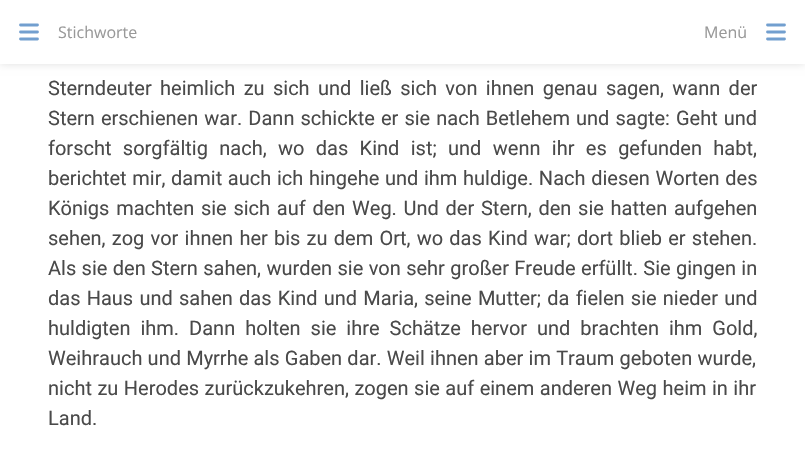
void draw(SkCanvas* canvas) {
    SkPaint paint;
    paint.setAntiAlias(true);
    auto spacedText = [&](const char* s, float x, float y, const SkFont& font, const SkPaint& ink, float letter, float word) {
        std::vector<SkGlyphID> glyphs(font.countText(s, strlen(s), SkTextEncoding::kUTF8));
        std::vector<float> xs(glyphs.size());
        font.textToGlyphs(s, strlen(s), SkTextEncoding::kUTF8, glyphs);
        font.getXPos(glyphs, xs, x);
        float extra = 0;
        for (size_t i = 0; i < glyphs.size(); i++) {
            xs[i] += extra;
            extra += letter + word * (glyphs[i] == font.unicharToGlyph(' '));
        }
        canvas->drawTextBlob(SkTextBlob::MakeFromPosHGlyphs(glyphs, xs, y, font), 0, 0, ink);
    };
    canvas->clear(0xFFFFFFFF);
    paint.setColor(0x1F000000);
    paint.setMaskFilter(SkMaskFilter::MakeBlur(kNormal_SkBlurStyle, 4));
    canvas->drawRect(SkRect::MakeXYWH(0, 0, 805, 64), paint);
    paint.setMaskFilter(nullptr);
    paint.setColor(0xFFFFFFFF);
    canvas->drawRect(SkRect::MakeXYWH(0, 0, 805, 64), paint);
    paint.setStyle(SkPaint::kStroke_Style);
    paint.setStrokeWidth(2.8f);
    paint.setStrokeCap(SkPaint::kRound_Cap);
    paint.setStrokeJoin(SkPaint::kRound_Join);
    paint.setColor(0xFF729FCF);
    canvas->drawPath(SkPathBuilder().moveTo(20.5f, 25).lineTo(37.5f, 25).moveTo(20.5f, 32).lineTo(37.5f, 32).moveTo(37.5f, 39).lineTo(20.5f, 39).detach(), paint);
    SkFont font1(fontMgr->matchFamilyStyle("Open Sans", SkFontStyle::Normal()), 16);
    font1.setSubpixel(true);
    paint.setStyle(SkPaint::kFill_Style);
    paint.setColor(0xFF999999);
    canvas->drawString("Stichworte", 58, 38, font1, paint);
    canvas->drawString("Menü", 704, 38, font1, paint);
    paint.setStyle(SkPaint::kStroke_Style);
    paint.setColor(0xFF729FCF);
    canvas->drawPath(SkPathBuilder().moveTo(767.5f, 25).lineTo(784.5f, 25).moveTo(767.5f, 32).lineTo(784.5f, 32).moveTo(784.5f, 39).lineTo(767.5f, 39).detach(), paint);
    SkFont font2(fontMgr->matchFamilyStyle("Roboto", SkFontStyle::Normal()), 20);
    font2.setSubpixel(true);
    paint.setStyle(SkPaint::kFill_Style);
    paint.setColor(0xFF4A4A4A);
    spacedText("Sterndeuter heimlich zu sich und ließ sich von ihnen genau sagen, wann der", 48, 95, font2, paint, 0, 3.4f);
    spacedText("Stern erschienen war. Dann schickte er sie nach Betlehem und sagte: Geht und", 48, 125, font2, paint, 0, 1.1f);
    spacedText("forscht sorgfältig nach, wo das Kind ist; und wenn ihr es gefunden habt,", 48, 155, font2, paint, 0, 6.4f);
    spacedText("berichtet mir, damit auch ich hingehe und ihm huldige. Nach diesen Worten des", 48, 185, font2, paint, 0, 0.7f);
    spacedText("Königs machten sie sich auf den Weg. Und der Stern, den sie hatten aufgehen", 48, 215, font2, paint, 0, 1.75f);
    spacedText("sehen, zog vor ihnen her bis zu dem Ort, wo das Kind war; dort blieb er stehen.", 48, 245, font2, paint, 0, 1.25f);
    spacedText("Als sie den Stern sahen, wurden sie von sehr großer Freude erfüllt. Sie gingen in", 48, 275, font2, paint, 0, 0.4f);
    spacedText("das Haus und sahen das Kind und Maria, seine Mutter; da fielen sie nieder und", 48, 305, font2, paint, 0, 1.25f);
    spacedText("huldigten ihm. Dann holten sie ihre Schätze hervor und brachten ihm Gold,", 48, 335, font2, paint, 0, 5);
    spacedText("Weihrauch und Myrrhe als Gaben dar. Weil ihnen aber im Traum geboten wurde,", 48, 365, font2, paint, 0, 0.25f);
    spacedText("nicht zu Herodes zurückzukehren, zogen sie auf einem anderen Weg heim in ihr", 48, 395, font2, paint, 0, 0.5f);
    canvas->drawString("Land.", 48, 425, font2, paint);
}
